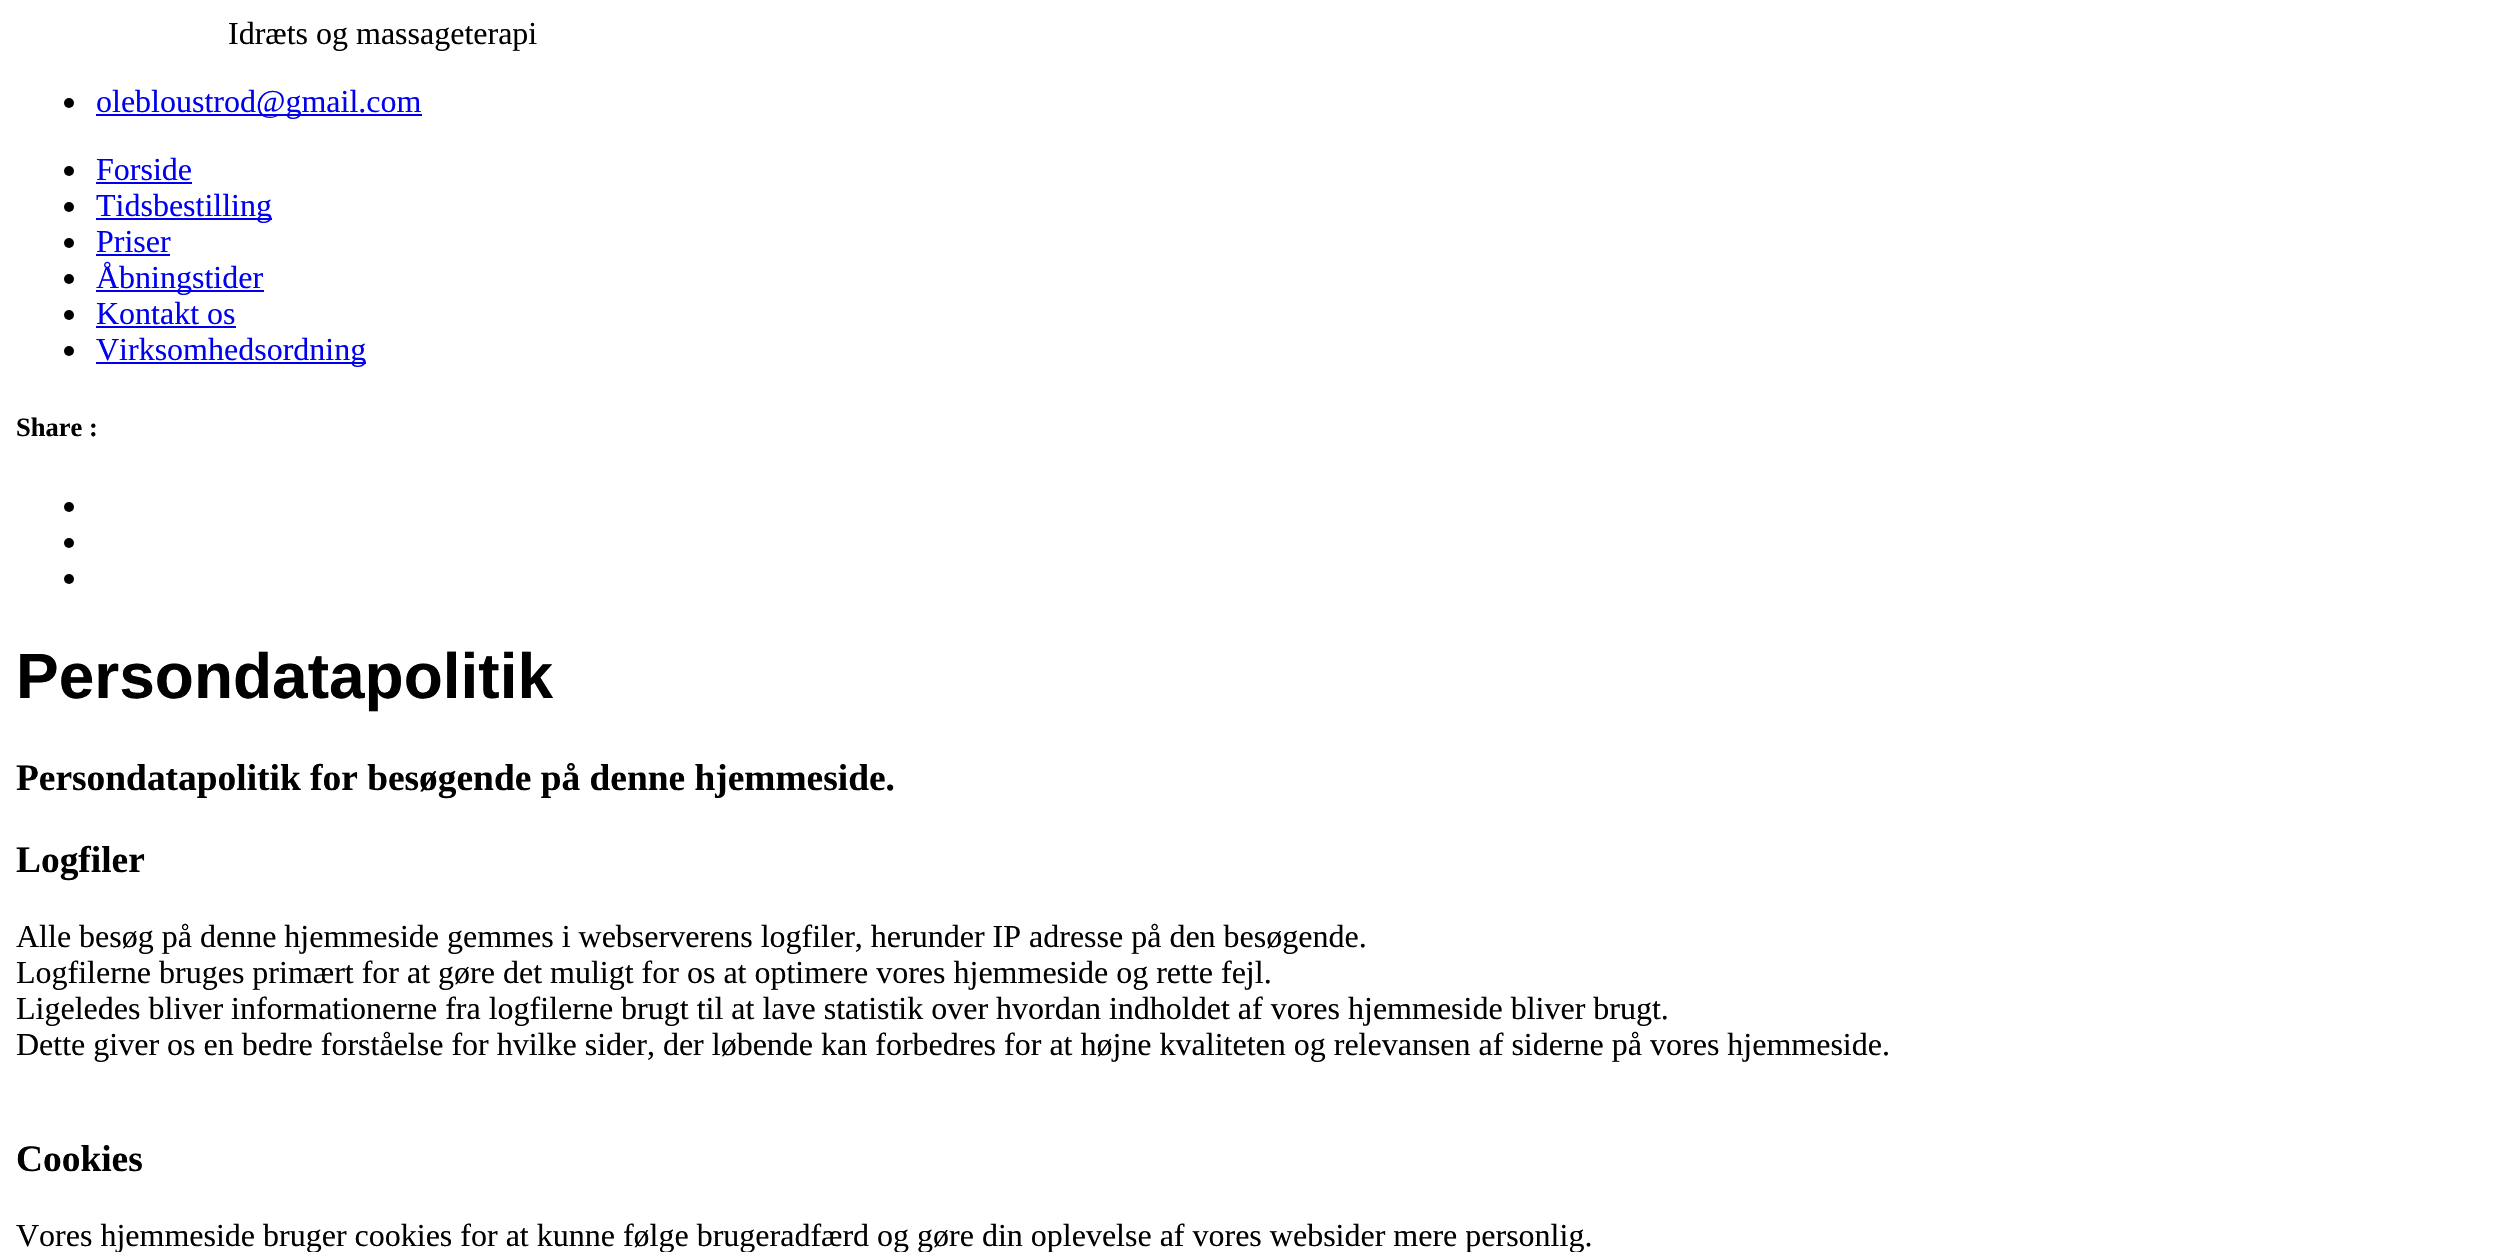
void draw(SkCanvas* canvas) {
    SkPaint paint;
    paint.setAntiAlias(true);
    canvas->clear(0xFFFFFFFF);
    SkFont font1(fontMgr->matchFamilyStyle("Liberation Serif", SkFontStyle::Normal()), 32);
    font1.setSubpixel(true);
    paint.setColor(0xFF000000);
    canvas->drawString("Idræts og massageterapi", 228, 44, font1, paint);
    canvas->drawCircle(69, 103, 5, paint);
    paint.setColor(0xFF0000EE);
    canvas->drawRect(SkRect::MakeXYWH(96, 114, 326, 2), paint);
    canvas->drawString("olebloustrod@gmail.com", 96, 112, font1, paint);
    paint.setColor(0xFF000000);
    canvas->drawCircle(69, 171, 5, paint);
    paint.setColor(0xFF0000EE);
    canvas->drawString("Forside", 96, 180, font1, paint);
    canvas->drawRect(SkRect::MakeXYWH(96, 182, 96, 2), paint);
    paint.setColor(0xFF000000);
    canvas->drawCircle(69, 207, 5, paint);
    paint.setColor(0xFF0000EE);
    canvas->drawRect(SkRect::MakeXYWH(96, 218, 176, 2), paint);
    canvas->drawString("Tidsbestilling", 96, 216, font1, paint);
    paint.setColor(0xFF000000);
    canvas->drawCircle(69, 243, 5, paint);
    paint.setColor(0xFF0000EE);
    canvas->drawString("Priser", 96, 252, font1, paint);
    canvas->drawRect(SkRect::MakeXYWH(96, 254, 74, 2), paint);
    paint.setColor(0xFF000000);
    canvas->drawCircle(69, 279, 5, paint);
    paint.setColor(0xFF0000EE);
    canvas->drawRect(SkRect::MakeXYWH(96, 290, 168, 2), paint);
    canvas->drawString("Åbningstider", 96, 288, font1, paint);
    paint.setColor(0xFF000000);
    canvas->drawCircle(69, 315, 5, paint);
    paint.setColor(0xFF0000EE);
    canvas->drawString("Kontakt os", 96, 324, font1, paint);
    canvas->drawRect(SkRect::MakeXYWH(96, 326, 140, 2), paint);
    paint.setColor(0xFF000000);
    canvas->drawCircle(69, 351, 5, paint);
    paint.setColor(0xFF0000EE);
    canvas->drawRect(SkRect::MakeXYWH(96, 362, 270, 2), paint);
    canvas->drawString("Virksomhedsordning", 96, 360, font1, paint);
    SkFont font2(fontMgr->matchFamilyStyle("Liberation Serif", SkFontStyle::Bold()), 26.5f);
    font2.setSubpixel(true);
    paint.setColor(0xFF000000);
    canvas->drawString("Share :", 16, 436, font2, paint);
    canvas->drawCircle(69, 507, 5, paint);
    canvas->drawCircle(69, 543, 5, paint);
    canvas->drawCircle(69, 579, 5, paint);
    SkFont font3(fontMgr->matchFamilyStyle("Liberation Sans", SkFontStyle::Bold()), 64);
    font3.setSubpixel(true);
    canvas->drawString("Persondatapolitik", 16, 698, font3, paint);
    SkFont font4(fontMgr->matchFamilyStyle("Liberation Serif", SkFontStyle::Bold()), 37.4f);
    font4.setSubpixel(true);
    canvas->drawString("Persondatapolitik for besøgende på denne hjemmeside.", 16, 790, font4, paint);
    canvas->drawString("Logfiler", 16, 872, font4, paint);
    canvas->drawString("Alle besøg på denne hjemmeside gemmes i webserverens logfiler, herunder IP adresse på den besøgende.", 16, 947, font1, paint);
    canvas->drawString("Logfilerne bruges primært for at gøre det muligt for os at optimere vores hjemmeside og rette fejl.", 16, 983, font1, paint);
    canvas->drawString("Ligeledes bliver informationerne fra logfilerne brugt til at lave statistik over hvordan indholdet af vores hjemmeside bliver brugt.", 16, 1019, font1, paint);
    canvas->drawString("Dette giver os en bedre forståelse for hvilke sider, der løbende kan forbedres for at højne kvaliteten og relevansen af siderne på vores hjemmeside.", 16, 1055, font1, paint);
    canvas->drawString("Cookies", 16, 1171, font4, paint);
    canvas->drawString("Vores hjemmeside bruger cookies for at kunne følge brugeradfærd og gøre din oplevelse af vores websider mere personlig.", 16, 1246, font1, paint);
}
